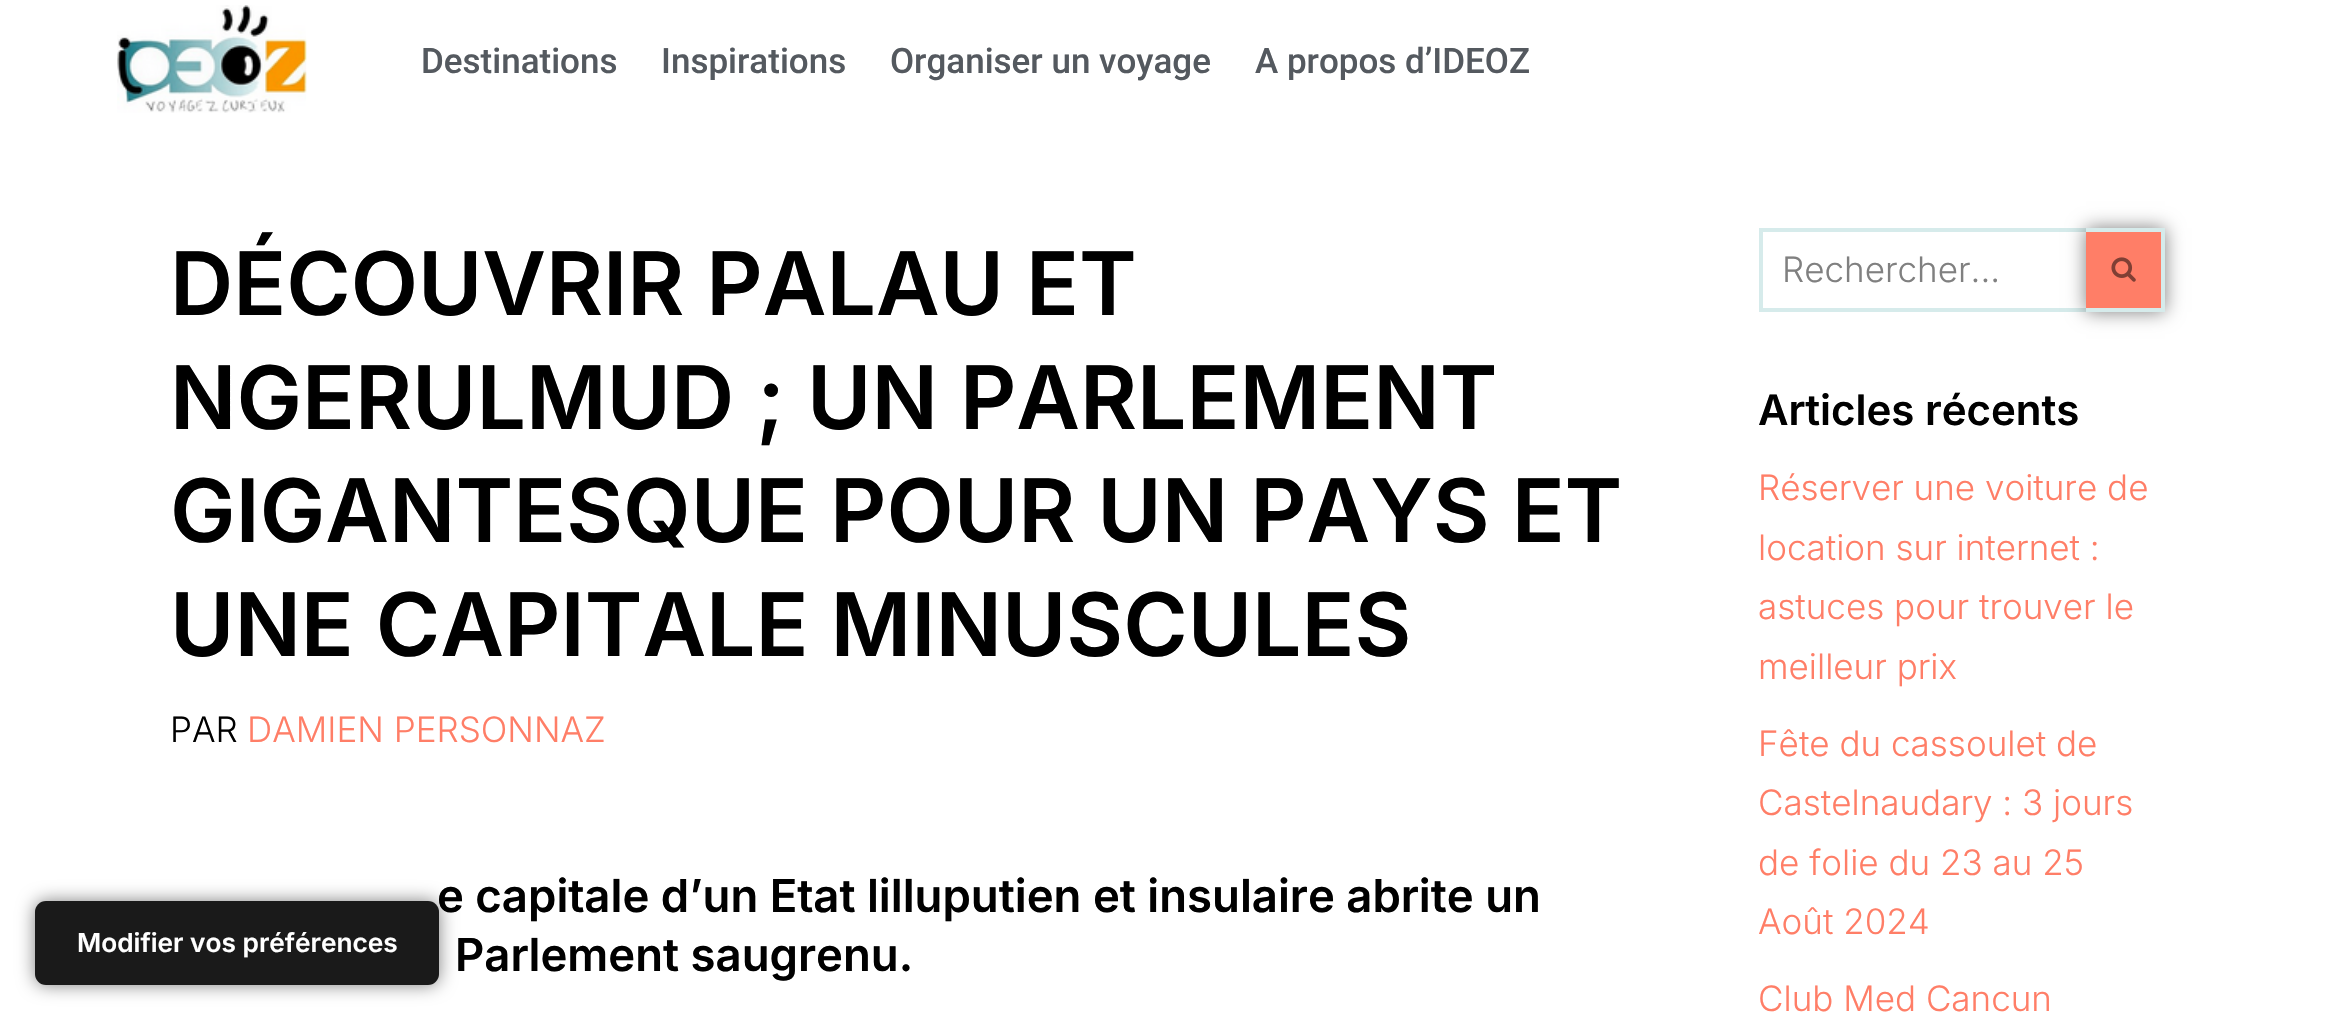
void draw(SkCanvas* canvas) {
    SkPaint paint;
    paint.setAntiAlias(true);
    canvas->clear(0xFFFFFFFF);
    canvas->drawImageRect(SkImages::DeferredFromEncodedData(SkData::MakeFromFileName("img1.png")), SkRect::MakeXYWH(117, 5, 190, 108), SkSamplingOptions());
    SkFont font1(fontMgr->matchFamilyStyle("Roboto", SkFontStyle(500, SkFontStyle::kNormal_Width, SkFontStyle::kUpright_Slant)), 35);
    font1.setSubpixel(true);
    paint.setColor(0xFF54595F);
    canvas->drawString("Destinations", 421, 73, font1, paint);
    canvas->drawString("Inspirations", 661, 73, font1, paint);
    canvas->drawString("Organiser un voyage", 890, 73, font1, paint);
    canvas->drawString("A propos d’IDEOZ", 1255, 73, font1, paint);
    SkFont font2(fontMgr->matchFamilyStyle("Inter", SkFontStyle(600, SkFontStyle::kNormal_Width, SkFontStyle::kUpright_Slant)), 87.5f);
    font2.setSubpixel(true);
    paint.setColor(0xFF000000);
    canvas->drawString("DÉCOUVRIR PALAU ET", 170, 315, font2, paint);
    canvas->drawString("NGERULMUD ; UN PARLEMENT", 170, 429, font2, paint);
    canvas->drawString("GIGANTESQUE POUR UN PAYS ET", 170, 542, font2, paint);
    canvas->drawString("UNE CAPITALE MINUSCULES", 170, 656, font2, paint);
    SkFont font3(fontMgr->matchFamilyStyle("Inter", SkFontStyle(300, SkFontStyle::kNormal_Width, SkFontStyle::kUpright_Slant)), 35);
    font3.setSubpixel(true);
    canvas->drawString("PAR", 170, 742, font3, paint);
    paint.setColor(0xFFFF7E67);
    canvas->drawString("DAMIEN PERSONNAZ", 247, 742, font3, paint);
    SkFont font4(fontMgr->matchFamilyStyle("Inter", SkFontStyle(600, SkFontStyle::kNormal_Width, SkFontStyle::kUpright_Slant)), 45.5f);
    font4.setSubpixel(true);
    paint.setColor(0xFF000000);
    canvas->drawString("e capitale d’un Etat lilluputien et insulaire abrite un", 437, 912, font4, paint);
    canvas->drawString("Parlement saugrenu.", 455, 971, font4, paint);
    paint.setColor(0xFFD6EBEB);
    canvas->drawRect(SkRect::MakeXYWH(1759, 228, 327, 4), paint);
    canvas->drawRect(SkRect::MakeXYWH(1759, 308, 327, 4), paint);
    canvas->drawRect(SkRect::MakeXYWH(1759, 228, 4, 84), paint);
    paint.setColor(0xFF808080);
    canvas->drawString("Rechercher...", 1782, 282, font3, paint);
    paint.setColor(0x80000000);
    paint.setMaskFilter(SkMaskFilter::MakeBlur(kNormal_SkBlurStyle, 9));
    canvas->drawRect(SkRect::MakeXYWH(2086, 228, 79, 84), paint);
    paint.setMaskFilter(nullptr);
    paint.setColor(0xFFFF7E67);
    canvas->drawRect(SkRect::MakeXYWH(2086, 232, 75, 76), paint);
    paint.setColor(0xFFD6EBEB);
    canvas->drawRect(SkRect::MakeXYWH(2086, 228, 79, 4), paint);
    canvas->drawRect(SkRect::MakeXYWH(2161, 228, 4, 84), paint);
    canvas->drawRect(SkRect::MakeXYWH(2086, 308, 79, 4), paint);
    canvas->drawImageRect(SkImages::DeferredFromEncodedData(SkData::MakeFromFileName("img2.png")), SkRect::MakeXYWH(2111, 257, 25, 25), SkSamplingOptions());
    SkFont font5(fontMgr->matchFamilyStyle("Inter", SkFontStyle(600, SkFontStyle::kNormal_Width, SkFontStyle::kUpright_Slant)), 42);
    font5.setSubpixel(true);
    paint.setColor(0xFF000000);
    canvas->drawString("Articles récents", 1758, 425, font5, paint);
    paint.setColor(0xFFFF7E67);
    canvas->drawString("Réserver une voiture de", 1758, 500, font3, paint);
    canvas->drawString("location sur internet :", 1758, 560, font3, paint);
    canvas->drawString("astuces pour trouver le", 1758, 619, font3, paint);
    canvas->drawString("meilleur prix", 1758, 679, font3, paint);
    canvas->drawString("Fête du cassoulet de", 1758, 756, font3, paint);
    canvas->drawString("Castelnaudary : 3 jours", 1758, 815, font3, paint);
    canvas->drawString("de folie du 23 au 25", 1758, 875, font3, paint);
    canvas->drawString("Août 2024", 1758, 934, font3, paint);
    canvas->drawString("Club Med Cancun", 1758, 1011, font3, paint);
    paint.setColor(0x80000000);
    paint.setMaskFilter(SkMaskFilter::MakeBlur(kNormal_SkBlurStyle, 9));
    canvas->drawRoundRect(SkRect::MakeXYWH(35, 901, 404, 84), 11, 11, paint);
    paint.setMaskFilter(nullptr);
    paint.setColor(0xFF1A1A1A);
    canvas->drawRoundRect(SkRect::MakeXYWH(35, 901, 404, 84), 11, 11, paint);
    SkFont font6(fontMgr->matchFamilyStyle("Inter", SkFontStyle(600, SkFontStyle::kNormal_Width, SkFontStyle::kUpright_Slant)), 26.25f);
    font6.setSubpixel(true);
    paint.setColor(0xFFFFFFFF);
    canvas->drawString("Modifier vos préférences", 77, 952, font6, paint);
}
